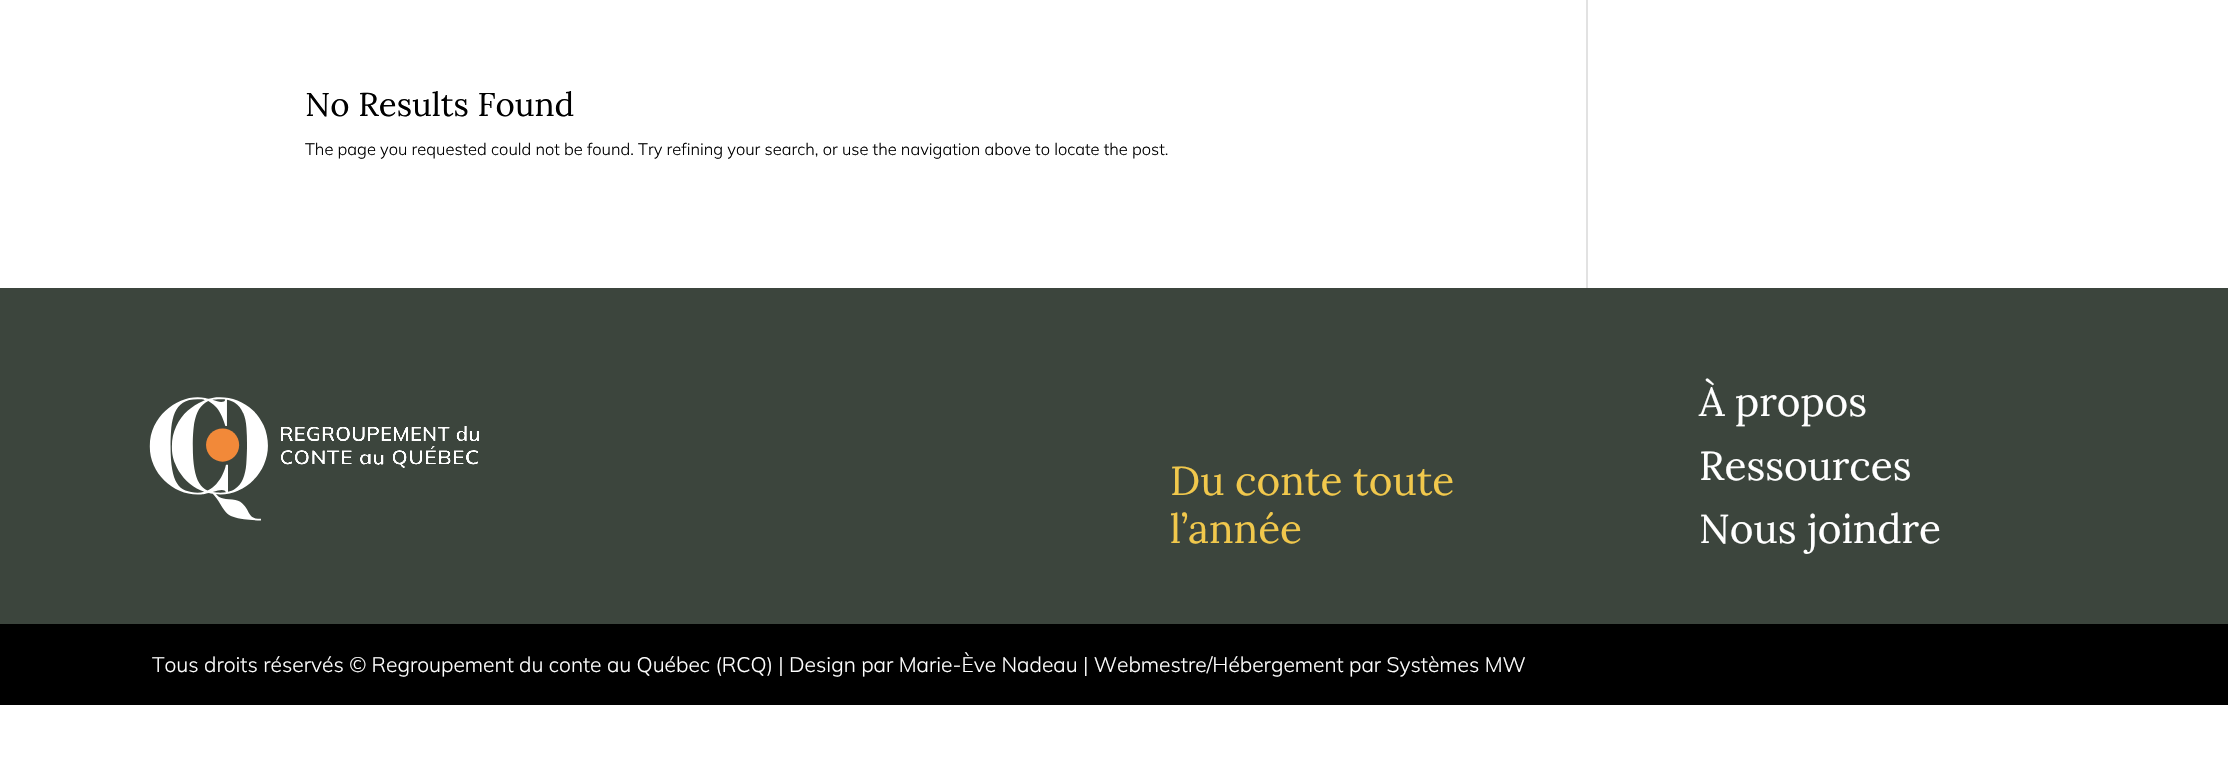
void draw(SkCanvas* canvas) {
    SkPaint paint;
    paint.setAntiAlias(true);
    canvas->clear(0xFFFFFFFF);
    SkFont font1(fontMgr->matchFamilyStyle("Lora", SkFontStyle::Normal()), 33);
    font1.setSubpixel(true);
    paint.setColor(0xFF000000);
    canvas->drawString("No Results Found", 305, 116, font1, paint);
    SkFont font2(fontMgr->matchFamilyStyle("Mulish", SkFontStyle(300, SkFontStyle::kNormal_Width, SkFontStyle::kUpright_Slant)), 16.5f);
    font2.setSubpixel(true);
    canvas->drawString("The page you requested could not be found. Try refining your search, or use the navigation above to locate the post.", 305, 155, font2, paint);
    paint.setColor(0xFFE2E2E2);
    canvas->drawRect(SkRect::MakeXYWH(1586, 0, 2, 288), paint);
    paint.setColor(0xFF3C453D);
    canvas->drawRect(SkRect::MakeXYWH(0, 288, 2228, 336), paint);
    canvas->drawImageRect(SkImages::DeferredFromEncodedData(SkData::MakeFromFileName("img1.png")), SkRect::MakeXYWH(149, 397, 330, 124), SkSamplingOptions());
    SkFont font3(fontMgr->matchFamilyStyle("Lora", SkFontStyle::Normal()), 40.5f);
    font3.setSubpixel(true);
    paint.setColor(0xFFF1C84C);
    canvas->drawString("Du conte toute", 1170, 495, font3, paint);
    canvas->drawString("l’année", 1170, 543, font3, paint);
    paint.setColor(0xFFFFFFFF);
    canvas->drawString("À propos", 1699, 416, font3, paint);
    canvas->drawString("Ressources", 1699, 480, font3, paint);
    canvas->drawString("Nous joindre", 1699, 543, font3, paint);
    paint.setColor(0xFF000000);
    canvas->drawRect(SkRect::MakeXYWH(0, 624, 2228, 81), paint);
    SkFont font4(fontMgr->matchFamilyStyle("Mulish", SkFontStyle(300, SkFontStyle::kNormal_Width, SkFontStyle::kUpright_Slant)), 21);
    font4.setSubpixel(true);
    paint.setColor(0xFFFFFFFF);
    canvas->drawString("Tous droits réservés © Regroupement du conte au Québec (RCQ) | Design par Marie-Ève Nadeau | Webmestre/Hébergement par Systèmes MW", 152, 672, font4, paint);
}
